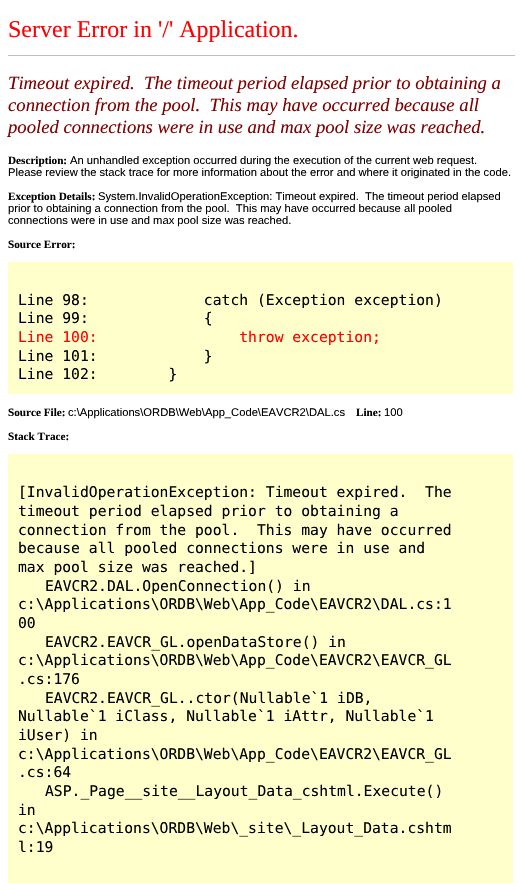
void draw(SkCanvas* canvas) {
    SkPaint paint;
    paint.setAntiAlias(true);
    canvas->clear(0xFFFFFFFF);
    SkFont font1(fontMgr->matchFamilyStyle("Liberation Serif", SkFontStyle::Normal()), 24);
    font1.setSubpixel(true);
    paint.setColor(0xFFFF0000);
    canvas->drawString("Server Error in '/' Application.", 8, 37, font1, paint);
    paint.setColor(0xFFC0C0C0);
    canvas->drawRect(SkRect::MakeXYWH(8, 55, 507, 1), paint);
    SkFont font2(fontMgr->matchFamilyStyle("Liberation Serif", SkFontStyle::Italic()), 18.7f);
    font2.setSubpixel(true);
    paint.setColor(0xFF800000);
    canvas->drawString("Timeout expired.  The timeout period elapsed prior to obtaining a", 8, 89, font2, paint);
    canvas->drawString("connection from the pool.  This may have occurred because all", 8, 111, font2, paint);
    canvas->drawString("pooled connections were in use and max pool size was reached.", 8, 133, font2, paint);
    SkFont font3(fontMgr->matchFamilyStyle("Liberation Serif", SkFontStyle::Bold()), 11.2f);
    font3.setSubpixel(true);
    paint.setColor(0xFF000000);
    canvas->drawString("Description:", 8, 164, font3, paint);
    SkFont font4(fontMgr->matchFamilyStyle("Liberation Sans", SkFontStyle::Normal()), 11.2f);
    font4.setSubpixel(true);
    canvas->drawString("An unhandled exception occurred during the execution of the current web request.", 70, 164, font4, paint);
    canvas->drawString("Please review the stack trace for more information about the error and where it originated in the code.", 8, 176, font4, paint);
    canvas->drawString("Exception Details:", 8, 200, font3, paint);
    canvas->drawString("System.InvalidOperationException: Timeout expired.  The timeout period elapsed", 98, 200, font4, paint);
    canvas->drawString("prior to obtaining a connection from the pool.  This may have occurred because all pooled", 8, 212, font4, paint);
    canvas->drawString("connections were in use and max pool size was reached.", 8, 224, font4, paint);
    canvas->drawString("Source Error:", 8, 248, font3, paint);
    paint.setColor(0xFFFFFFCC);
    canvas->drawRect(SkRect::MakeXYWH(8, 262, 505, 132), paint);
    SkFont font5(fontMgr->matchFamilyStyle("DejaVu Sans Mono", SkFontStyle::Normal()), 14.7f);
    font5.setSubpixel(true);
    paint.setColor(0xFF000000);
    canvas->drawString("Line 98:             catch (Exception exception)", 18, 305, font5, paint);
    canvas->drawString("Line 99:             {", 18, 323, font5, paint);
    paint.setColor(0xFFFF0000);
    canvas->drawString("Line 100:                throw exception;", 18, 342, font5, paint);
    paint.setColor(0xFF000000);
    canvas->drawString("Line 101:            }", 18, 361, font5, paint);
    canvas->drawString("Line 102:        }", 18, 379, font5, paint);
    canvas->drawString("Source File:", 8, 416, font3, paint);
    canvas->drawString("c:\\Applications\\ORDB\\Web\\App_Code\\EAVCR2\\DAL.cs", 68, 416, font4, paint);
    canvas->drawString("Line:", 356, 416, font3, paint);
    canvas->drawString("100", 384, 416, font4, paint);
    canvas->drawString("Stack Trace:", 8, 440, font3, paint);
    paint.setColor(0xFFFFFFCC);
    canvas->drawRect(SkRect::MakeXYWH(8, 454, 505, 429), paint);
    paint.setColor(0xFF000000);
    canvas->drawString("[InvalidOperationException: Timeout expired.  The", 18, 497, font5, paint);
    canvas->drawString("timeout period elapsed prior to obtaining a", 18, 516, font5, paint);
    canvas->drawString("connection from the pool.  This may have occurred", 18, 535, font5, paint);
    canvas->drawString("because all pooled connections were in use and", 18, 553, font5, paint);
    canvas->drawString("max pool size was reached.]", 18, 572, font5, paint);
    canvas->drawString("EAVCR2.DAL.OpenConnection() in", 45, 591, font5, paint);
    canvas->drawString("c:\\Applications\\ORDB\\Web\\App_Code\\EAVCR2\\DAL.cs:1", 18, 609, font5, paint);
    canvas->drawString("00", 18, 628, font5, paint);
    canvas->drawString("EAVCR2.EAVCR_GL.openDataStore() in", 45, 647, font5, paint);
    canvas->drawString("c:\\Applications\\ORDB\\Web\\App_Code\\EAVCR2\\EAVCR_GL", 18, 665, font5, paint);
    canvas->drawString(".cs:176", 18, 684, font5, paint);
    canvas->drawString("EAVCR2.EAVCR_GL..ctor(Nullable`1 iDB,", 45, 703, font5, paint);
    canvas->drawString("Nullable`1 iClass, Nullable`1 iAttr, Nullable`1", 18, 721, font5, paint);
    canvas->drawString("iUser) in", 18, 740, font5, paint);
    canvas->drawString("c:\\Applications\\ORDB\\Web\\App_Code\\EAVCR2\\EAVCR_GL", 18, 759, font5, paint);
    canvas->drawString(".cs:64", 18, 777, font5, paint);
    canvas->drawString("ASP._Page__site__Layout_Data_cshtml.Execute()", 45, 796, font5, paint);
    canvas->drawString("in", 18, 815, font5, paint);
    canvas->drawString("c:\\Applications\\ORDB\\Web\\_site\\_Layout_Data.cshtm", 18, 833, font5, paint);
    canvas->drawString("l:19", 18, 852, font5, paint);
}
